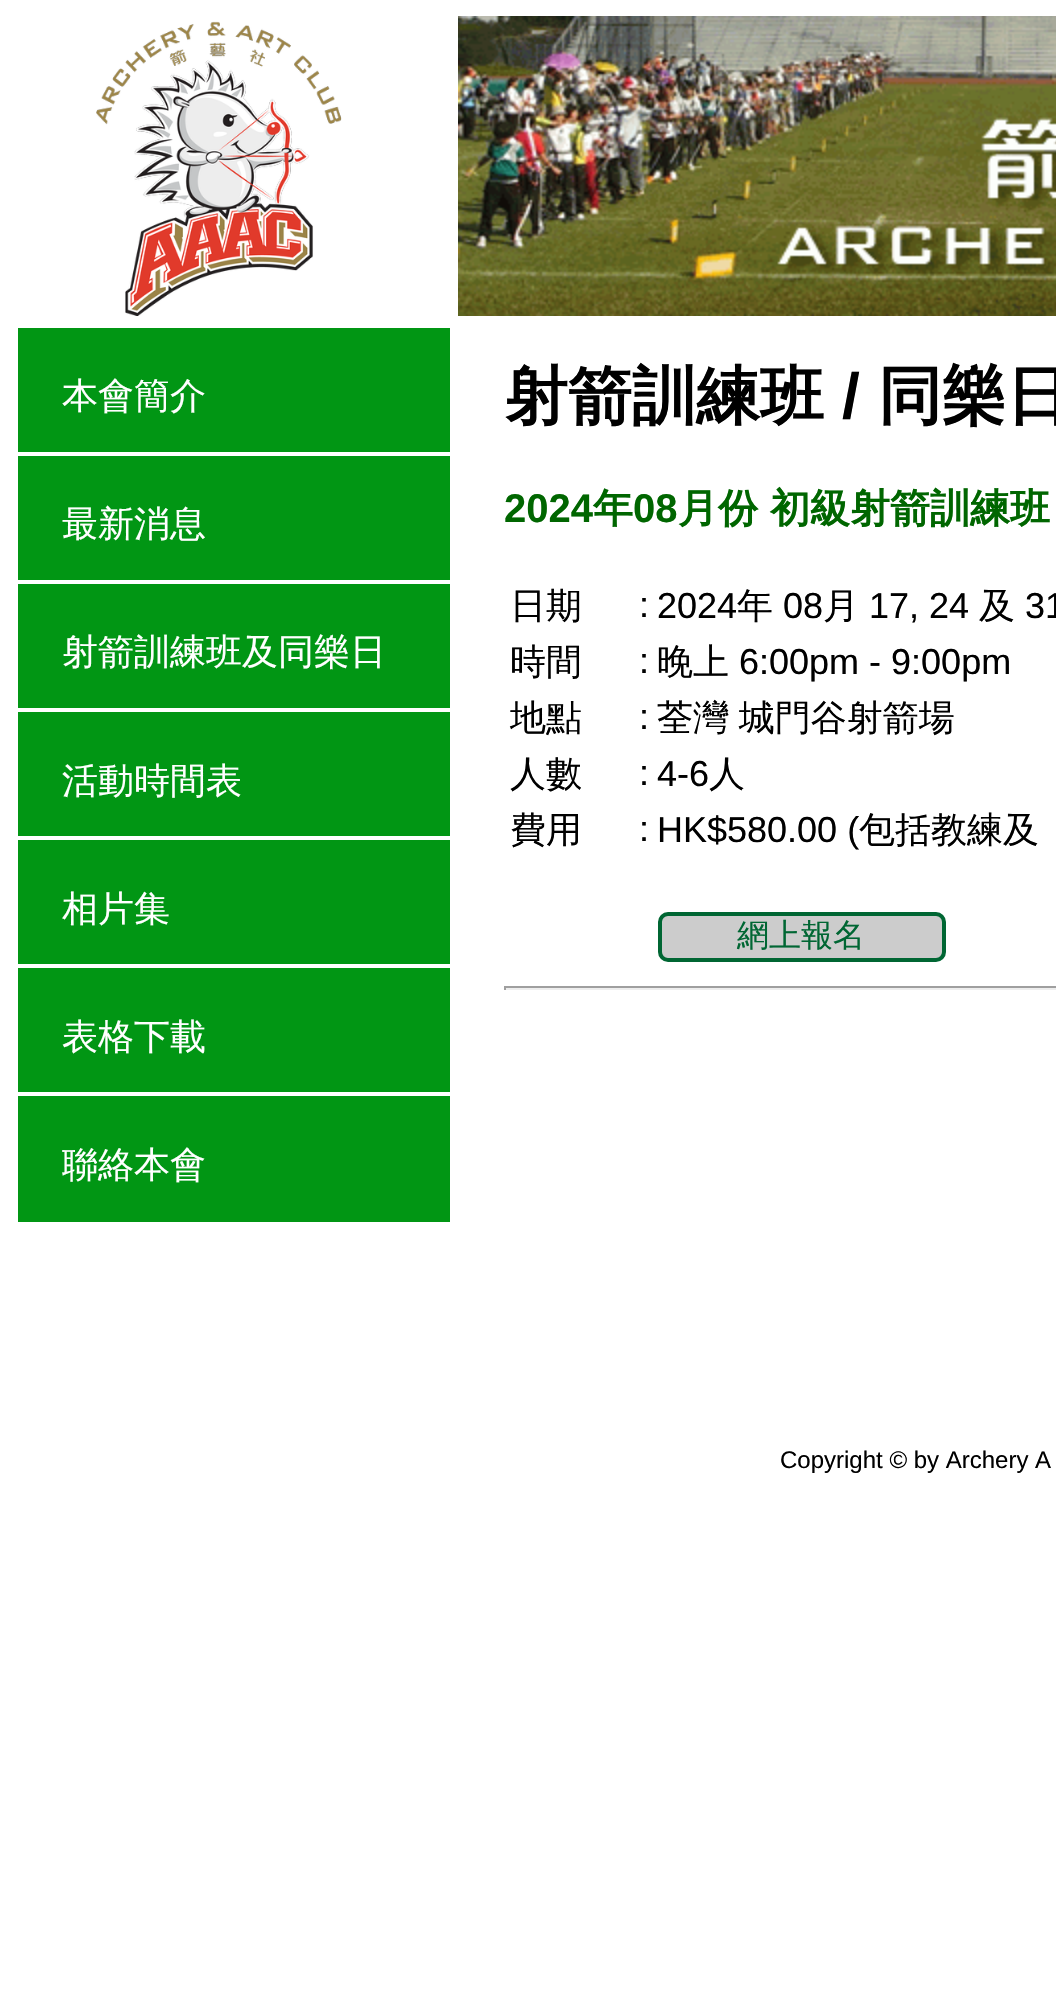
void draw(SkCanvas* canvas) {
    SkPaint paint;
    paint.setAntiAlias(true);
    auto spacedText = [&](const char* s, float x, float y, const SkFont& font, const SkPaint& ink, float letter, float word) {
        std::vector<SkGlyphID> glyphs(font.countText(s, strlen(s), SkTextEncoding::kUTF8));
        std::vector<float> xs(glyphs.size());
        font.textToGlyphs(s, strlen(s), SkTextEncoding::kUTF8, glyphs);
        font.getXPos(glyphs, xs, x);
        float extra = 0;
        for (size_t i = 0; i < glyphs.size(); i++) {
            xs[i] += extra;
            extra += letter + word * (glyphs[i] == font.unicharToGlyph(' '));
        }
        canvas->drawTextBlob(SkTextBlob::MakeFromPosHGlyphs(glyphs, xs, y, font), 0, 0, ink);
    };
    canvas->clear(0xFFFFFFFF);
    canvas->drawImageRect(SkImages::DeferredFromEncodedData(SkData::MakeFromFileName("img1.png")), SkRect::MakeXYWH(96, 21, 246, 295), SkSamplingOptions());
    canvas->drawImageRect(SkImages::DeferredFromEncodedData(SkData::MakeFromFileName("img2.png")), SkRect::MakeXYWH(458, 16, 598, 300), SkSamplingOptions());
    paint.setColor(0xFF019614);
    canvas->drawRect(SkRect::MakeXYWH(18, 328, 432, 124), paint);
    SkFont font1(fontMgr->matchFamilyStyle("WenQuanYi Zen Hei", SkFontStyle(500, SkFontStyle::kNormal_Width, SkFontStyle::kUpright_Slant)), 36);
    font1.setSubpixel(true);
    paint.setColor(0xFFFFFFFF);
    canvas->drawString("本會簡介", 62, 408, font1, paint);
    paint.setColor(0xFF019614);
    canvas->drawRect(SkRect::MakeXYWH(18, 456, 432, 124), paint);
    paint.setColor(0xFFFFFFFF);
    canvas->drawString("最新消息", 62, 536, font1, paint);
    paint.setColor(0xFF019614);
    canvas->drawRect(SkRect::MakeXYWH(18, 584, 432, 124), paint);
    paint.setColor(0xFFFFFFFF);
    canvas->drawString("射箭訓練班及同樂日", 62, 664, font1, paint);
    paint.setColor(0xFF019614);
    canvas->drawRect(SkRect::MakeXYWH(18, 712, 432, 124), paint);
    paint.setColor(0xFFFFFFFF);
    canvas->drawString("活動時間表", 62, 793, font1, paint);
    paint.setColor(0xFF019614);
    canvas->drawRect(SkRect::MakeXYWH(18, 840, 432, 124), paint);
    paint.setColor(0xFFFFFFFF);
    canvas->drawString("相片集", 62, 921, font1, paint);
    paint.setColor(0xFF019614);
    canvas->drawRect(SkRect::MakeXYWH(18, 968, 432, 124), paint);
    paint.setColor(0xFFFFFFFF);
    canvas->drawString("表格下載", 62, 1049, font1, paint);
    paint.setColor(0xFF019614);
    canvas->drawRect(SkRect::MakeXYWH(18, 1096, 432, 126), paint);
    paint.setColor(0xFFFFFFFF);
    canvas->drawString("聯絡本會", 62, 1177, font1, paint);
    SkFont font2(fontMgr->matchFamilyStyle("WenQuanYi Zen Hei", SkFontStyle::Bold()), 64);
    font2.setSubpixel(true);
    paint.setColor(0xFF000000);
    canvas->drawString("射箭訓練班", 504, 418, font2, paint);
    SkFont font3(fontMgr->matchFamilyStyle("Liberation Sans", SkFontStyle::Bold()), 64);
    font3.setSubpixel(true);
    canvas->drawString("/", 842, 418, font3, paint);
    canvas->drawString("同樂日", 878, 418, font2, paint);
    SkFont font4(fontMgr->matchFamilyStyle("Liberation Sans", SkFontStyle::Bold()), 40);
    font4.setSubpixel(true);
    paint.setColor(0xFF006600);
    canvas->drawString("2024", 504, 522, font4, paint);
    SkFont font5(fontMgr->matchFamilyStyle("WenQuanYi Zen Hei", SkFontStyle::Bold()), 40);
    font5.setSubpixel(true);
    canvas->drawString("年", 593, 522, font5, paint);
    canvas->drawString("08", 633, 522, font4, paint);
    canvas->drawString("月份 初級射箭訓練班", 678, 522, font5, paint);
    paint.setColor(0xFF000000);
    canvas->drawString("日期", 510, 618, font1, paint);
    SkFont font6(fontMgr->matchFamilyStyle("Liberation Sans", SkFontStyle::Normal()), 36);
    font6.setSubpixel(true);
    canvas->drawString(":", 639, 617, font6, paint);
    canvas->drawString("2024", 657, 618, font6, paint);
    canvas->drawString("年", 737, 618, font1, paint);
    canvas->drawString("08", 783, 618, font6, paint);
    canvas->drawString("月", 823, 618, font1, paint);
    canvas->drawString("17, 24", 869, 618, font6, paint);
    canvas->drawString("及", 979, 618, font1, paint);
    canvas->drawString("31", 1025, 618, font6, paint);
    canvas->drawString("時間", 510, 674, font1, paint);
    canvas->drawString(":", 639, 673, font6, paint);
    canvas->drawString("晚上", 657, 674, font1, paint);
    canvas->drawString("6:00pm - 9:00pm", 739, 674, font6, paint);
    canvas->drawString("地點", 510, 730, font1, paint);
    canvas->drawString(":", 639, 729, font6, paint);
    spacedText("荃灣 城門谷射箭場", 657, 730, font1, paint, 0, -1);
    canvas->drawString("人數", 510, 786, font1, paint);
    canvas->drawString(":", 639, 785, font6, paint);
    canvas->drawString("4-6", 657, 786, font6, paint);
    canvas->drawString("人", 709, 786, font1, paint);
    canvas->drawString("費用", 510, 842, font1, paint);
    canvas->drawString(":", 639, 841, font6, paint);
    canvas->drawString("HK$580.00 (", 657, 842, font6, paint);
    canvas->drawString("包括教練及", 859, 842, font1, paint);
    paint.setColor(0xFFCCCCCC);
    canvas->drawRoundRect(SkRect::MakeXYWH(660, 914, 284, 46), 8, 8, paint);
    paint.setStyle(SkPaint::kStroke_Style);
    paint.setStrokeWidth(4);
    paint.setColor(0xFF006633);
    canvas->drawRoundRect(SkRect::MakeXYWH(660, 914, 284, 46), 8, 8, paint);
    SkFont font7(fontMgr->matchFamilyStyle("WenQuanYi Zen Hei", SkFontStyle(500, SkFontStyle::kNormal_Width, SkFontStyle::kUpright_Slant)), 32);
    font7.setSubpixel(true);
    paint.setStyle(SkPaint::kFill_Style);
    canvas->drawString("網上報名", 737, 946, font7, paint);
    paint.setColor(0xFF9F9F9F);
    canvas->drawRect(SkRect::MakeXYWH(504, 986, 552, 2), paint);
    paint.setColor(0xFFEEEEEE);
    canvas->drawRect(SkRect::MakeXYWH(504, 988, 552, 2), paint);
    paint.setColor(0xFF9F9F9F);
    canvas->drawRect(SkRect::MakeXYWH(504, 986, 2, 4), paint);
    SkFont font8(fontMgr->matchFamilyStyle("Liberation Sans", SkFontStyle::Normal()), 24);
    font8.setSubpixel(true);
    paint.setColor(0xFF000000);
    canvas->drawString("Copyright © by Archery A", 780, 1468, font8, paint);
}
